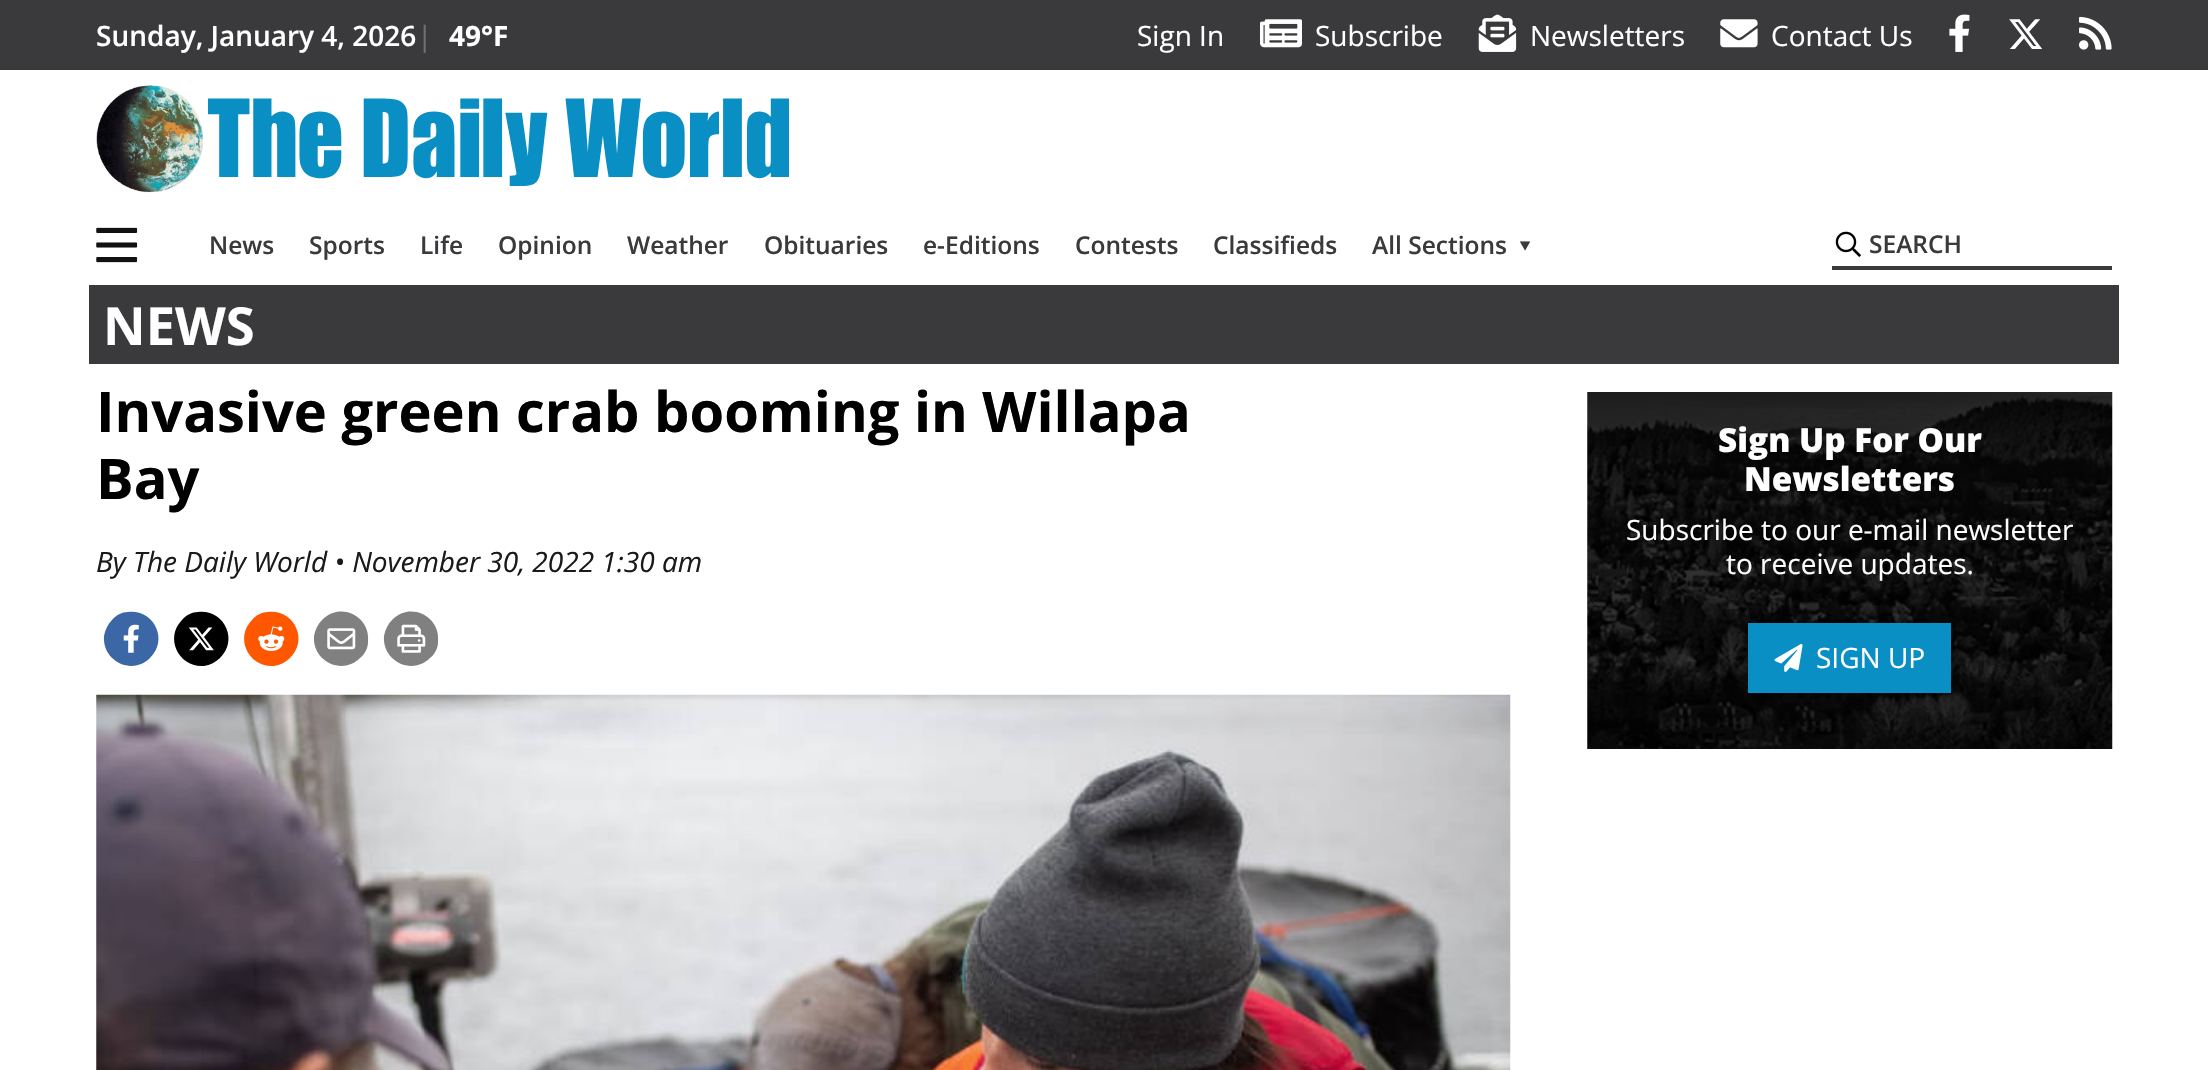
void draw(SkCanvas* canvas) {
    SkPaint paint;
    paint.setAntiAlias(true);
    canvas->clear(0xFFFFFFFF);
    paint.setColor(0xFF3A3A3C);
    canvas->drawRect(SkRect::MakeXYWH(0, 0, 2208, 70), paint);
    SkFont font1(fontMgr->matchFamilyStyle("Open Sans", SkFontStyle(600, SkFontStyle::kNormal_Width, SkFontStyle::kUpright_Slant)), 28);
    font1.setSubpixel(true);
    paint.setColor(0xFFFFFFFF);
    canvas->drawString("Sunday, January 4, 2026", 96, 46, font1, paint);
    SkFont font2(fontMgr->matchFamilyStyle("Open Sans", SkFontStyle::Normal()), 28);
    font2.setSubpixel(true);
    paint.setColor(0xFF717171);
    canvas->drawString("|", 417, 46, font2, paint);
    SkFont font3(fontMgr->matchFamilyStyle("Open Sans", SkFontStyle::Bold()), 28);
    font3.setSubpixel(true);
    paint.setColor(0xFFFFFFFF);
    canvas->drawString("49°F", 449, 46, font3, paint);
    canvas->drawString("Sign In", 1137, 46, font2, paint);
    canvas->drawImageRect(SkImages::DeferredFromEncodedData(SkData::MakeFromFileName("img1.png")), SkRect::MakeXYWH(1260, 19, 42, 29), SkSamplingOptions());
    canvas->drawString("Subscribe", 1315, 46, font2, paint);
    canvas->drawImageRect(SkImages::DeferredFromEncodedData(SkData::MakeFromFileName("img2.png")), SkRect::MakeXYWH(1478, 14, 39, 38), SkSamplingOptions());
    canvas->drawString("Newsletters", 1530, 46, font2, paint);
    canvas->drawImageRect(SkImages::DeferredFromEncodedData(SkData::MakeFromFileName("img3.png")), SkRect::MakeXYWH(1720, 19, 38, 29), SkSamplingOptions());
    canvas->drawString("Contact Us", 1771, 46, font2, paint);
    canvas->drawImageRect(SkImages::DeferredFromEncodedData(SkData::MakeFromFileName("img4.png")), SkRect::MakeXYWH(1949, 14, 21, 38), SkSamplingOptions());
    canvas->drawImageRect(SkImages::DeferredFromEncodedData(SkData::MakeFromFileName("img5.png")), SkRect::MakeXYWH(2009, 19, 33, 30), SkSamplingOptions());
    canvas->drawImageRect(SkImages::DeferredFromEncodedData(SkData::MakeFromFileName("img6.png")), SkRect::MakeXYWH(2079, 16, 33, 34), SkSamplingOptions());
    canvas->drawImageRect(SkImages::DeferredFromEncodedData(SkData::MakeFromFileName("img7.png")), SkRect::MakeXYWH(96, 85, 693, 108), SkSamplingOptions());
    canvas->drawImageRect(SkImages::DeferredFromEncodedData(SkData::MakeFromFileName("img8.png")), SkRect::MakeXYWH(96, 227, 42, 36), SkSamplingOptions());
    SkFont font4(fontMgr->matchFamilyStyle("Open Sans", SkFontStyle(600, SkFontStyle::kNormal_Width, SkFontStyle::kUpright_Slant)), 24.5f);
    font4.setSubpixel(true);
    paint.setColor(0xFF3A3A3C);
    canvas->drawString("News", 209, 254, font4, paint);
    canvas->drawString("Sports", 309, 254, font4, paint);
    canvas->drawString("Life", 420, 254, font4, paint);
    canvas->drawString("Opinion", 498, 254, font4, paint);
    canvas->drawString("Weather", 627, 254, font4, paint);
    canvas->drawString("Obituaries", 764, 254, font4, paint);
    canvas->drawString("e-Editions", 923, 254, font4, paint);
    canvas->drawString("Contests", 1075, 254, font4, paint);
    canvas->drawString("Classifieds", 1213, 254, font4, paint);
    canvas->drawString("All Sections", 1372, 254, font4, paint);
    SkFont font5(fontMgr->matchFamilyStyle("Noto Sans", SkFontStyle::Normal()), 35);
    font5.setSubpixel(true);
    canvas->save();
    canvas->rotate(90, 1512, 239);
    canvas->drawString("‣", 1512, 239, font5, paint);
    canvas->restore();
    canvas->drawImageRect(SkImages::DeferredFromEncodedData(SkData::MakeFromFileName("img9.png")), SkRect::MakeXYWH(1835, 231, 26, 26), SkSamplingOptions());
    canvas->drawRect(SkRect::MakeXYWH(1832, 266, 280, 4), paint);
    canvas->drawString("SEARCH", 1869, 253, font4, paint);
    canvas->drawRect(SkRect::MakeXYWH(89, 285, 2030, 79), paint);
    SkFont font6(fontMgr->matchFamilyStyle("Open Sans", SkFontStyle::Bold()), 52.5f);
    font6.setSubpixel(true);
    paint.setColor(0xFFFFFFFF);
    canvas->drawString("NEWS", 103, 345, font6, paint);
    SkFont font7(fontMgr->matchFamilyStyle("Open Sans", SkFontStyle::Bold()), 56);
    font7.setSubpixel(true);
    paint.setColor(0xFF000000);
    canvas->drawString("Invasive green crab booming in Willapa", 96, 432, font7, paint);
    canvas->drawString("Bay", 96, 499, font7, paint);
    SkFont font8(fontMgr->matchFamilyStyle("Open Sans", SkFontStyle::Italic()), 28);
    font8.setSubpixel(true);
    paint.setColor(0xFF1A1A1A);
    canvas->drawString("By The Daily World • November 30, 2022 1:30 am", 96, 572, font8, paint);
    paint.setColor(0xFF3C67A7);
    canvas->drawPath(SkPathBuilder().moveTo(112, 620).cubicTo(116, 615, 122, 612, 128, 612).cubicTo(154, 609, 169, 640, 150, 658).cubicTo(132, 676, 102, 661, 104, 636).cubicTo(105, 630, 108, 624, 112, 620).close().detach(), paint);
    canvas->drawImageRect(SkImages::DeferredFromEncodedData(SkData::MakeFromFileName("img10.png")), SkRect::MakeXYWH(123, 624, 16, 29), SkSamplingOptions());
    paint.setColor(0xFF000000);
    canvas->drawPath(SkPathBuilder().moveTo(182, 620).cubicTo(186, 615, 192, 612, 198, 612).cubicTo(224, 609, 239, 640, 220, 658).cubicTo(216, 662, 210, 665, 204, 666).cubicTo(179, 668, 164, 638, 182, 620).close().detach(), paint);
    canvas->drawImageRect(SkImages::DeferredFromEncodedData(SkData::MakeFromFileName("img11.png")), SkRect::MakeXYWH(188, 627, 26, 24), SkSamplingOptions());
    paint.setColor(0xFFFF5700);
    canvas->drawPath(SkPathBuilder().moveTo(252, 620).cubicTo(256, 615, 262, 612, 268, 612).cubicTo(294, 609, 309, 640, 290, 658).cubicTo(286, 662, 280, 665, 274, 666).cubicTo(249, 668, 234, 638, 252, 620).close().detach(), paint);
    canvas->drawImageRect(SkImages::DeferredFromEncodedData(SkData::MakeFromFileName("img12.png")), SkRect::MakeXYWH(258, 626, 27, 25), SkSamplingOptions());
    paint.setColor(0xFF808080);
    canvas->drawPath(SkPathBuilder().moveTo(322, 620).cubicTo(340, 601, 371, 616, 368, 642).cubicTo(368, 648, 365, 654, 360, 658).cubicTo(342, 676, 312, 661, 314, 636).cubicTo(315, 630, 318, 624, 322, 620).close().detach(), paint);
    canvas->drawImageRect(SkImages::DeferredFromEncodedData(SkData::MakeFromFileName("img13.png")), SkRect::MakeXYWH(327, 628, 29, 22), SkSamplingOptions());
    canvas->drawPath(SkPathBuilder().moveTo(392, 620).cubicTo(410, 601, 441, 616, 438, 642).cubicTo(438, 648, 435, 654, 430, 658).cubicTo(412, 676, 382, 661, 384, 636).cubicTo(385, 630, 388, 624, 392, 620).close().detach(), paint);
    canvas->drawImageRect(SkImages::DeferredFromEncodedData(SkData::MakeFromFileName("img14.png")), SkRect::MakeXYWH(397, 624, 29, 29), SkSamplingOptions());
    canvas->drawImageRect(SkImages::DeferredFromEncodedData(SkData::MakeFromFileName("img15.png")), SkRect::MakeXYWH(96, 694, 1415, 376), SkSamplingOptions());
    canvas->drawImageRect(SkImages::DeferredFromEncodedData(SkData::MakeFromFileName("img16.png")), SkRect::MakeXYWH(1587, 392, 526, 357), SkSamplingOptions());
    SkFont font9(fontMgr->matchFamilyStyle("Open Sans", SkFontStyle(800, SkFontStyle::kNormal_Width, SkFontStyle::kUpright_Slant)), 33.25f);
    font9.setSubpixel(true);
    paint.setColor(0xFFFFFFFF);
    canvas->drawString("Sign Up For Our", 1718, 452, font9, paint);
    canvas->drawString("Newsletters", 1744, 491, font9, paint);
    canvas->drawString("Subscribe to our e-mail newsletter", 1626, 540, font2, paint);
    canvas->drawString("to receive updates.", 1726, 574, font2, paint);
    paint.setColor(0xFF098FC3);
    canvas->drawRect(SkRect::MakeXYWH(1748, 623, 203, 70), paint);
    canvas->drawImageRect(SkImages::DeferredFromEncodedData(SkData::MakeFromFileName("img17.png")), SkRect::MakeXYWH(1774, 644, 29, 28), SkSamplingOptions());
    paint.setColor(0xFFFFFFFF);
    canvas->drawString("SIGN UP", 1816, 668, font2, paint);
}
